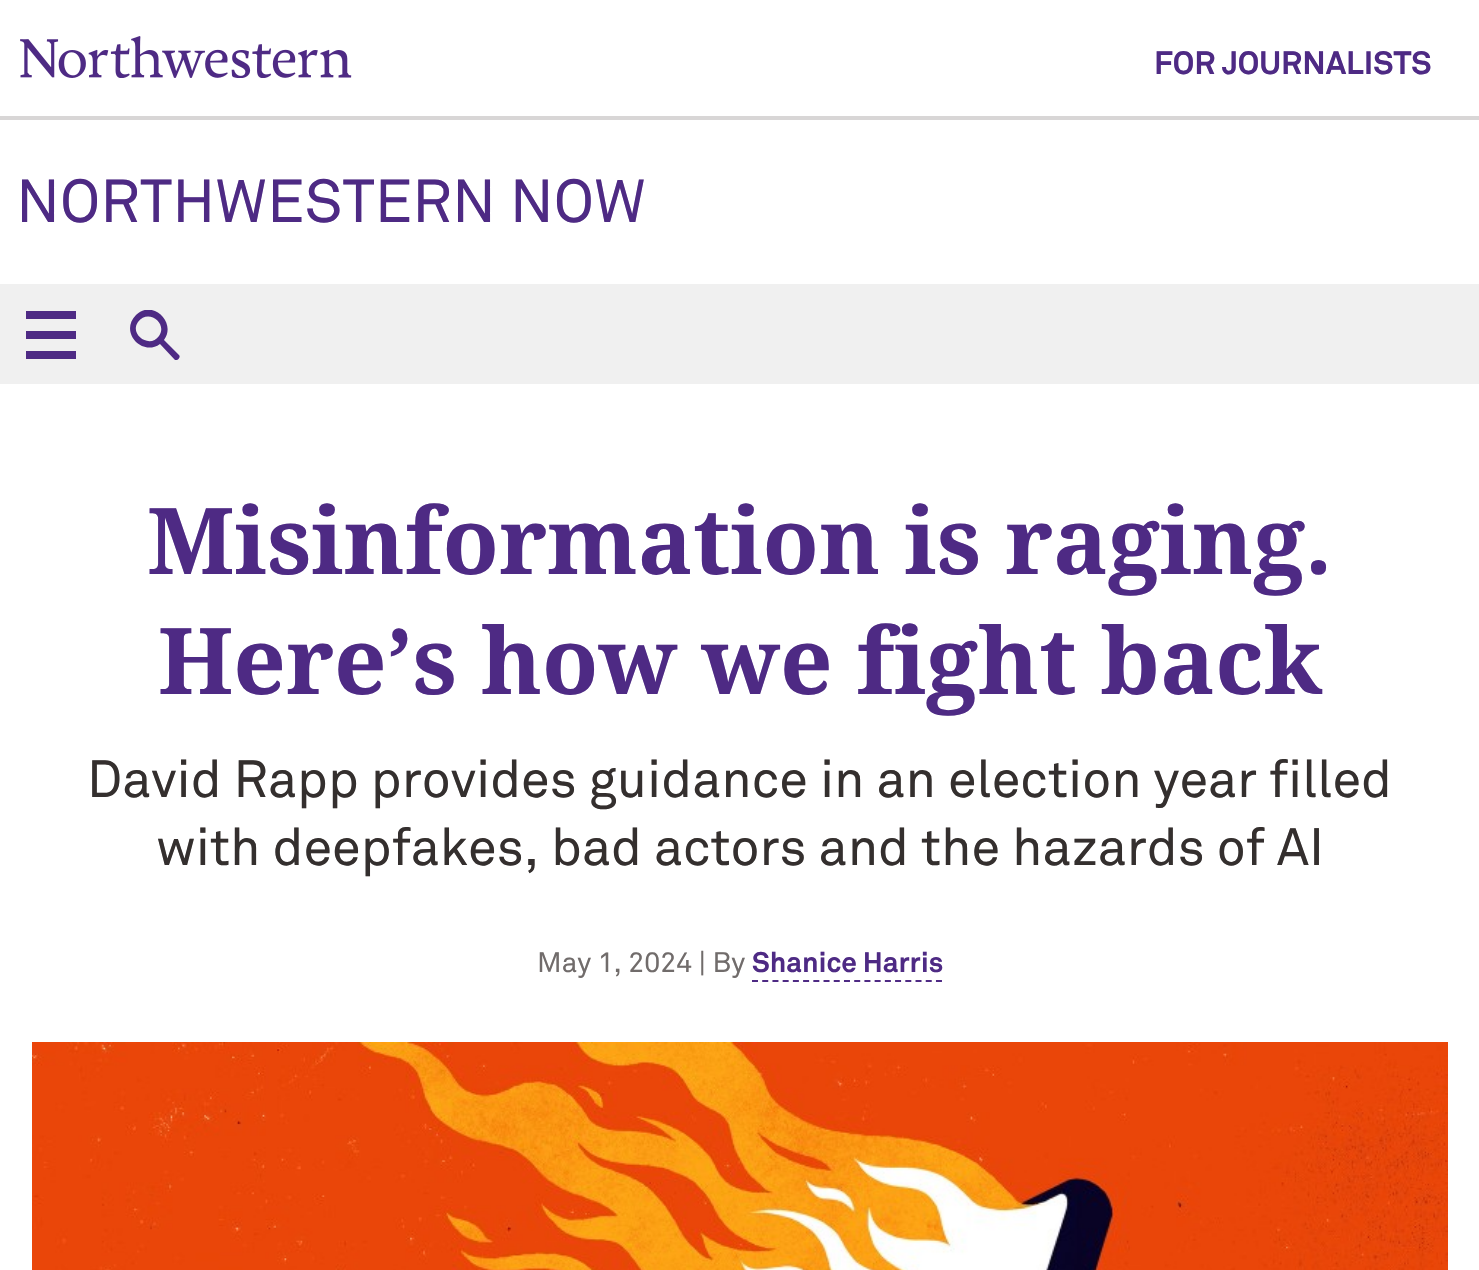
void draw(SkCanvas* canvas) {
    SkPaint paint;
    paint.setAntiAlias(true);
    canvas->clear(0xFFFFFFFF);
    paint.setColor(0xFFD8D6D6);
    canvas->drawRect(SkRect::MakeXYWH(0, 116, 1479, 4), paint);
    canvas->drawImageRect(SkImages::DeferredFromEncodedData(SkData::MakeFromFileName("img1.png")), SkRect::MakeXYWH(20, 36, 332, 42), SkSamplingOptions());
    SkFont font1(fontMgr->matchFamilyStyle("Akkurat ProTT", SkFontStyle::Bold()), 32);
    font1.setSubpixel(true);
    paint.setColor(0xFF4E2A84);
    canvas->drawString("FOR JOURNALISTS", 1154, 74, font1, paint);
    SkFont font2(fontMgr->matchFamilyStyle("Akkurat ProTT", SkFontStyle::Normal()), 60);
    font2.setSubpixel(true);
    canvas->drawString("NORTHWESTERN NOW", 16, 222, font2, paint);
    paint.setColor(0xFFF0F0F0);
    canvas->drawRect(SkRect::MakeXYWH(0, 284, 1479, 100), paint);
    paint.setColor(0xFF4E2A84);
    canvas->drawRect(SkRect::MakeXYWH(26, 311, 50, 8), paint);
    canvas->drawRect(SkRect::MakeXYWH(26, 331, 50, 8), paint);
    canvas->drawRect(SkRect::MakeXYWH(26, 351, 50, 8), paint);
    canvas->save();
    canvas->clipRect(SkRect::MakeXYWH(130, 310, 50, 50));
    canvas->drawPath(SkPathBuilder().moveTo(179, 355).lineTo(164, 340).cubicTo(177, 322, 152, 299, 136, 315).cubicTo(119, 332, 142, 357, 160, 344).lineTo(175, 360).cubicTo(178, 361, 181, 357, 179, 355).close().moveTo(159, 336).cubicTo(150, 349, 129, 335, 138, 322).cubicTo(148, 308, 168, 323, 159, 336).close().detach(), paint);
    canvas->restore();
    SkFont font3(fontMgr->matchFamilyStyle("Noto Serif", SkFontStyle::Bold()), 92);
    font3.setSubpixel(true);
    canvas->drawString("Misinformation is raging.", 147, 574, font3, paint);
    canvas->drawString("Here’s how we fight back", 158, 694, font3, paint);
    SkFont font4(fontMgr->matchFamilyStyle("Akkurat ProTT", SkFontStyle::Normal()), 52);
    font4.setSubpixel(true);
    paint.setColor(0xFF342F2E);
    canvas->drawString("David Rapp provides guidance in an election year filled", 87, 797, font4, paint);
    canvas->drawString("with deepfakes, bad actors and the hazards of AI", 156, 865, font4, paint);
    SkFont font5(fontMgr->matchFamilyStyle("Akkurat ProTT", SkFontStyle::Normal()), 28);
    font5.setSubpixel(true);
    paint.setColor(0xFF716C6B);
    canvas->drawString("May 1, 2024 | By", 537, 972, font5, paint);
    SkFont font6(fontMgr->matchFamilyStyle("Akkurat ProTT", SkFontStyle::Bold()), 28);
    font6.setSubpixel(true);
    paint.setColor(0xFF4E2A84);
    canvas->drawString("Shanice Harris", 752, 972, font6, paint);
    paint.setStyle(SkPaint::kStroke_Style);
    paint.setStrokeWidth(2);
    paint.setPathEffect(SkDashPathEffect::Make({{6, 4.22f}}, 0));
    canvas->drawPath(SkPathBuilder().moveTo(752, 981).lineTo(942, 981).detach(), paint);
    paint.setPathEffect(nullptr);
    canvas->drawImageRect(SkImages::DeferredFromEncodedData(SkData::MakeFromFileName("img2.png")), SkRect::MakeXYWH(32, 1042, 1416, 228), SkSamplingOptions());
}
